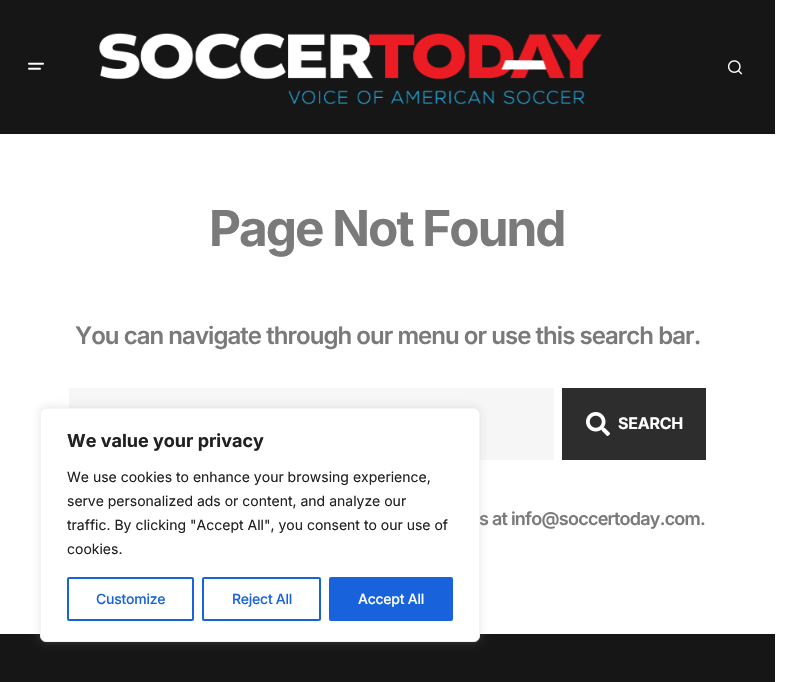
void draw(SkCanvas* canvas) {
    SkPaint paint;
    paint.setAntiAlias(true);
    auto spacedText = [&](const char* s, float x, float y, const SkFont& font, const SkPaint& ink, float letter, float word) {
        std::vector<SkGlyphID> glyphs(font.countText(s, strlen(s), SkTextEncoding::kUTF8));
        std::vector<float> xs(glyphs.size());
        font.textToGlyphs(s, strlen(s), SkTextEncoding::kUTF8, glyphs);
        font.getXPos(glyphs, xs, x);
        float extra = 0;
        for (size_t i = 0; i < glyphs.size(); i++) {
            xs[i] += extra;
            extra += letter + word * (glyphs[i] == font.unicharToGlyph(' '));
        }
        canvas->drawTextBlob(SkTextBlob::MakeFromPosHGlyphs(glyphs, xs, y, font), 0, 0, ink);
    };
    canvas->clear(0xFFFFFFFF);
    paint.setColor(0xFF161616);
    canvas->drawRect(SkRect::MakeXYWH(0, 0, 775, 134), paint);
    canvas->drawImageRect(SkImages::DeferredFromEncodedData(SkData::MakeFromFileName("img1.png")), SkRect::MakeXYWH(28, 62, 16, 8), SkSamplingOptions());
    canvas->drawImageRect(SkImages::DeferredFromEncodedData(SkData::MakeFromFileName("img2.png")), SkRect::MakeXYWH(99, 33, 504, 72), SkSamplingOptions());
    canvas->drawImageRect(SkImages::DeferredFromEncodedData(SkData::MakeFromFileName("img3.png")), SkRect::MakeXYWH(727, 60, 16, 15), SkSamplingOptions());
    SkFont font1(fontMgr->matchFamilyStyle("Inter", SkFontStyle::Bold()), 49.5f);
    font1.setSubpixel(true);
    paint.setColor(0xFF7A7A7A);
    spacedText("Page Not Found", 209, 246, font1, paint, -2, 0);
    SkFont font2(fontMgr->matchFamilyStyle("Inter", SkFontStyle(600, SkFontStyle::kNormal_Width, SkFontStyle::kUpright_Slant)), 24);
    font2.setSubpixel(true);
    spacedText("You can navigate through our menu or use this search bar.", 75, 344, font2, paint, -0.95f, 0);
    paint.setColor(0xFFF6F6F6);
    canvas->drawRect(SkRect::MakeXYWH(69, 388, 485, 72), paint);
    paint.setColor(0xFF2D2D2D);
    canvas->drawRect(SkRect::MakeXYWH(562, 388, 144, 72), paint);
    canvas->drawImageRect(SkImages::DeferredFromEncodedData(SkData::MakeFromFileName("img4.png")), SkRect::MakeXYWH(586, 412, 24, 24), SkSamplingOptions());
    SkFont font3(fontMgr->matchFamilyStyle("Inter", SkFontStyle::Bold()), 16);
    font3.setSubpixel(true);
    paint.setColor(0xFFFFFFFF);
    spacedText("SEARCH", 618, 429, font3, paint, -0.25f, 0);
    SkFont font4(fontMgr->matchFamilyStyle("Inter", SkFontStyle(600, SkFontStyle::kNormal_Width, SkFontStyle::kUpright_Slant)), 18);
    font4.setSubpixel(true);
    paint.setColor(0xFF7A7A7A);
    spacedText("s at info@soccertoday.com.", 479, 525, font4, paint, -0.75f, 0);
    paint.setColor(0xFF161616);
    canvas->drawRect(SkRect::MakeXYWH(0, 634, 775, 48), paint);
    paint.setColor(0x4DACABAB);
    paint.setMaskFilter(SkMaskFilter::MakeBlur(kNormal_SkBlurStyle, 5));
    canvas->drawRoundRect(SkRect::MakeXYWH(40, 407, 440, 234), 6, 6, paint);
    paint.setMaskFilter(nullptr);
    paint.setColor(0xFFFFFFFF);
    canvas->drawRoundRect(SkRect::MakeXYWH(40.5f, 408.5f, 439, 233), 5.5f, 5.5f, paint);
    paint.setStyle(SkPaint::kStroke_Style);
    paint.setStrokeWidth(1);
    paint.setColor(0xFFF4F4F4);
    canvas->drawRoundRect(SkRect::MakeXYWH(40.5f, 408.5f, 439, 233), 5.5f, 5.5f, paint);
    SkFont font5(fontMgr->matchFamilyStyle("Inter", SkFontStyle::Bold()), 18);
    font5.setSubpixel(true);
    paint.setStyle(SkPaint::kFill_Style);
    paint.setColor(0xFF212121);
    canvas->drawString("We value your privacy", 67, 447, font5, paint);
    SkFont font6(fontMgr->matchFamilyStyle("Inter", SkFontStyle::Normal()), 14);
    font6.setSubpixel(true);
    canvas->drawString("We use cookies to enhance your browsing experience,", 67, 482, font6, paint);
    canvas->drawString("serve personalized ads or content, and analyze our", 67, 506, font6, paint);
    canvas->drawString("traffic. By clicking \"Accept All\", you consent to our use of", 67, 530, font6, paint);
    canvas->drawString("cookies.", 67, 554, font6, paint);
    paint.setStyle(SkPaint::kStroke_Style);
    paint.setStrokeWidth(2);
    paint.setColor(0xFF1863DC);
    canvas->drawRoundRect(SkRect::MakeXYWH(68, 578, 125, 42), 1, 1, paint);
    SkFont font7(fontMgr->matchFamilyStyle("Inter", SkFontStyle(500, SkFontStyle::kNormal_Width, SkFontStyle::kUpright_Slant)), 14);
    font7.setSubpixel(true);
    paint.setStyle(SkPaint::kFill_Style);
    spacedText("Customize", 96, 604, font7, paint, -0.25f, 0);
    paint.setStyle(SkPaint::kStroke_Style);
    canvas->drawRoundRect(SkRect::MakeXYWH(203, 578, 117, 42), 1, 1, paint);
    paint.setStyle(SkPaint::kFill_Style);
    spacedText("Reject All", 232, 604, font7, paint, -0.25f, 0);
    canvas->drawRoundRect(SkRect::MakeXYWH(330, 578, 122, 42), 1, 1, paint);
    paint.setStyle(SkPaint::kStroke_Style);
    canvas->drawRoundRect(SkRect::MakeXYWH(330, 578, 122, 42), 1, 1, paint);
    paint.setStyle(SkPaint::kFill_Style);
    paint.setColor(0xFFFFFFFF);
    spacedText("Accept All", 358, 604, font7, paint, -0.25f, 0);
}
